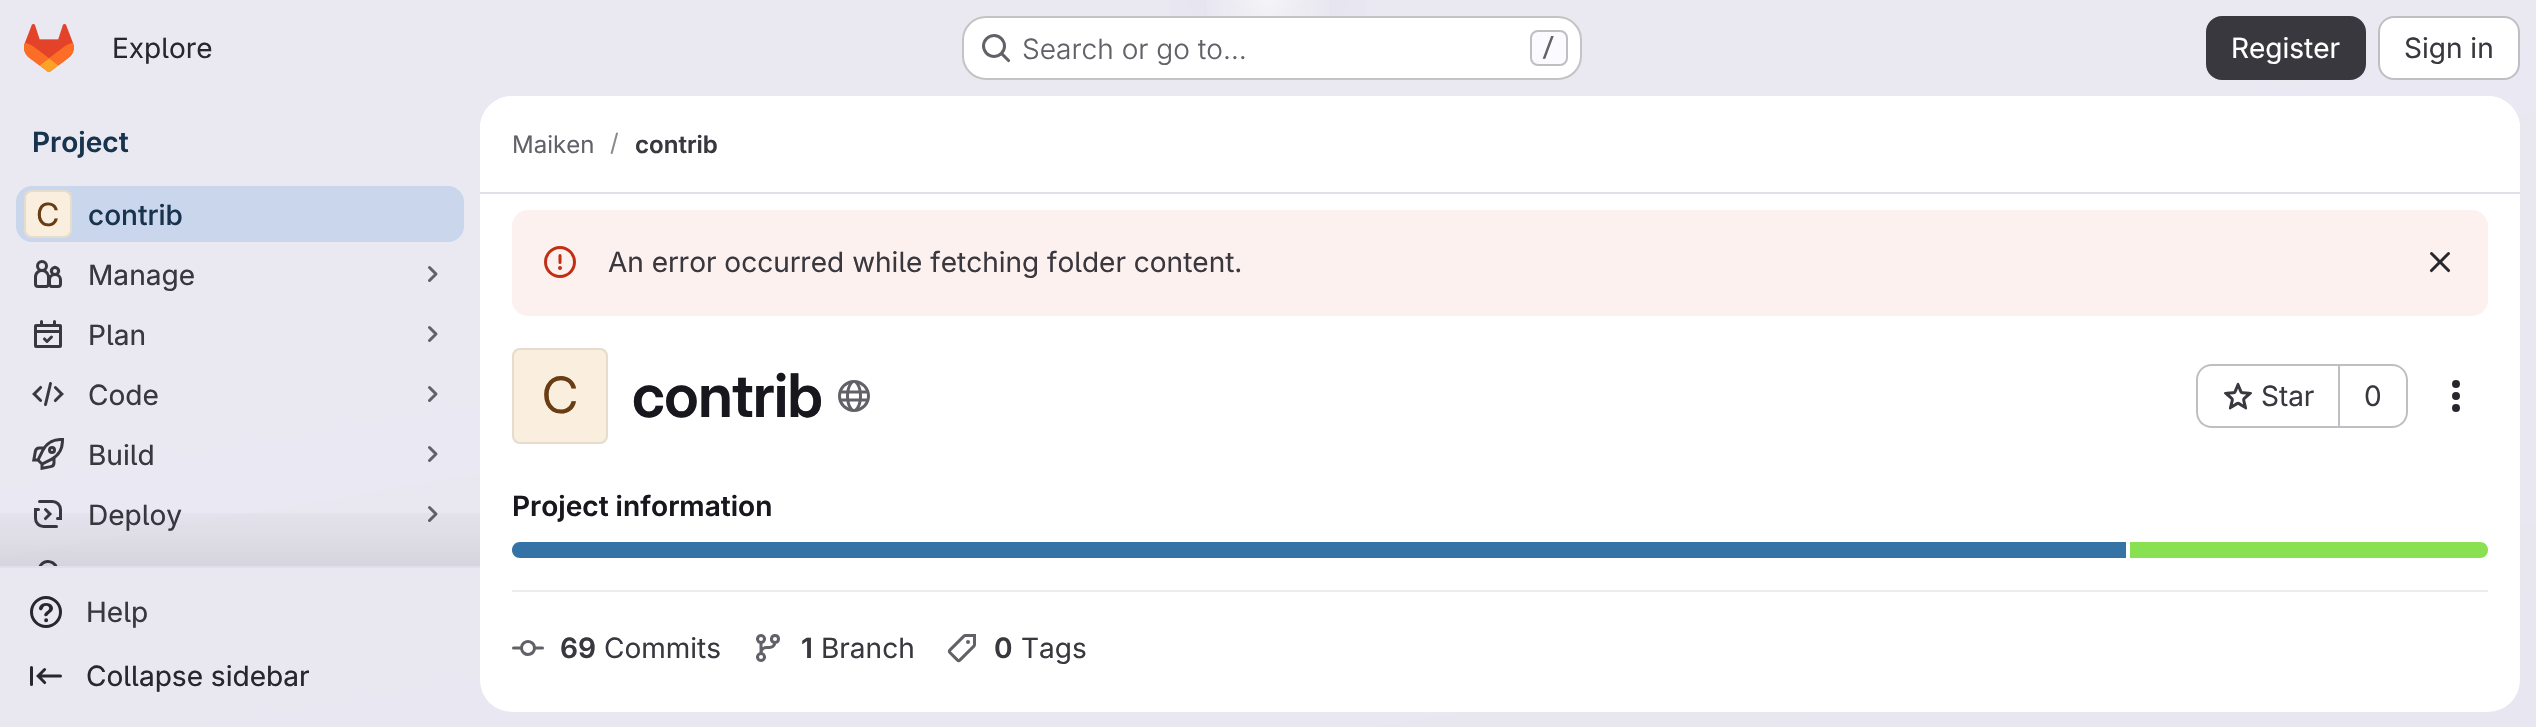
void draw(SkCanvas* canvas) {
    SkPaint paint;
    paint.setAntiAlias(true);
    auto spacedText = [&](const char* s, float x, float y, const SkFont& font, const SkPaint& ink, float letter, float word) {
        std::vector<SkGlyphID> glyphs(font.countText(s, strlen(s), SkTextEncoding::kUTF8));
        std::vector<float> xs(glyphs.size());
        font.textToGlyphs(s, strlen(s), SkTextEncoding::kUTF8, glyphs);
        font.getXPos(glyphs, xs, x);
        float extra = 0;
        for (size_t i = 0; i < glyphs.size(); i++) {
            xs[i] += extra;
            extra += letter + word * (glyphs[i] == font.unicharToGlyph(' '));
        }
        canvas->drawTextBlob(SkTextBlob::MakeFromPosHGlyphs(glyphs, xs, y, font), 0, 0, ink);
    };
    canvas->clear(0xFFFFFFFF);
    {
        const SkColor colors[] = {0xFFE8E6F0, 0xFFEAE9F2};
        const float stops[] = {0, 0.7f};
        const SkPoint ends[] = {{1368, 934}, {1168, -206}};
        paint.setShader(SkGradientShader::MakeLinear(ends, colors, stops, 2, SkTileMode::kClamp));
        paint.setAlpha(255);
    }
    canvas->drawRect(SkRect::MakeXYWH(0, 0, 2536, 727), paint);
    {
        const SkColor colors[] = {0xFFE4E2ED, 0x00E4E2ED};
        const float stops[] = {0, 0.11f};
        SkMatrix m = SkMatrix::Translate(1268, 0).preScale(1268, 728);
        paint.setShader(SkGradientShader::MakeRadial({0, 0}, 1, colors, stops, 2, SkTileMode::kClamp, 0, &m));
        paint.setAlpha(255);
    }
    canvas->drawRect(SkRect::MakeXYWH(1169, 0, 198, 16), paint);
    {
        const SkColor colors[] = {0xFFE4E2EC, 0x00E4E2EC};
        const float stops[] = {0, 0.08f};
        SkMatrix m = SkMatrix::Translate(1268, 0).preScale(1268, 728);
        paint.setShader(SkGradientShader::MakeRadial({0, 0}, 1, colors, stops, 2, SkTileMode::kClamp, 0, &m));
        paint.setAlpha(255);
    }
    canvas->drawRect(SkRect::MakeXYWH(1226, 2, 84, 12), paint);
    {
        const SkColor colors[] = {0x99FFFFFF, 0x00FFFFFF};
        const float stops[] = {0, 0.05f};
        paint.setShader(SkGradientShader::MakeRadial({1268, 0}, 1462, colors, stops, 2, SkTileMode::kClamp));
        paint.setAlpha(255);
    }
    canvas->drawRect(SkRect::MakeXYWH(1207, 0, 122, 16), paint);
    canvas->drawImageRect(SkImages::DeferredFromEncodedData(SkData::MakeFromFileName("img1.png")), SkRect::MakeXYWH(24, 24, 50, 48), SkSamplingOptions());
    SkFont font1(fontMgr->matchFamilyStyle("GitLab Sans", SkFontStyle::Normal()), 28);
    font1.setSubpixel(true);
    paint.setShader(nullptr);
    paint.setColor(0xFF28272D);
    canvas->drawString("Explore", 112, 58, font1, paint);
    paint.setColor(0xFFFFFFFF);
    canvas->drawRoundRect(SkRect::MakeXYWH(962, 16, 620, 64), 24, 24, paint);
    paint.setStyle(SkPaint::kStroke_Style);
    paint.setStrokeWidth(2);
    paint.setColor(0x3D050506);
    canvas->drawRoundRect(SkRect::MakeXYWH(963, 17, 618, 62), 23, 23, paint);
    canvas->drawImageRect(SkImages::DeferredFromEncodedData(SkData::MakeFromFileName("img2.png")), SkRect::MakeXYWH(982, 34, 29, 29), SkSamplingOptions());
    SkFont font2(fontMgr->matchFamilyStyle("GitLab Sans", SkFontStyle(300, SkFontStyle::kNormal_Width, SkFontStyle::kUpright_Slant)), 28);
    font2.setSubpixel(true);
    paint.setStyle(SkPaint::kFill_Style);
    paint.setColor(0xFF626168);
    canvas->drawString("Search or go to…", 1022, 59, font2, paint);
    paint.setColor(0xFFFBFAFD);
    canvas->drawRoundRect(SkRect::MakeXYWH(1531, 31, 36, 34), 7, 7, paint);
    paint.setStyle(SkPaint::kStroke_Style);
    paint.setColor(0xFFBFBFC3);
    canvas->drawRoundRect(SkRect::MakeXYWH(1531, 31, 36, 34), 7, 7, paint);
    SkFont font3(fontMgr->matchFamilyStyle("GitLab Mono", SkFontStyle(500, SkFontStyle::kNormal_Width, SkFontStyle::kUpright_Slant)), 24);
    font3.setSubpixel(true);
    paint.setStyle(SkPaint::kFill_Style);
    paint.setColor(0xFF626168);
    canvas->drawString("/", 1541, 56, font3, paint);
    paint.setColor(0xFF3A383F);
    canvas->drawRoundRect(SkRect::MakeXYWH(2207, 17, 158, 62), 15, 15, paint);
    paint.setStyle(SkPaint::kStroke_Style);
    canvas->drawRoundRect(SkRect::MakeXYWH(2207, 17, 158, 62), 15, 15, paint);
    paint.setStyle(SkPaint::kFill_Style);
    paint.setColor(0xFFFFFFFF);
    canvas->drawString("Register", 2231, 58, font1, paint);
    canvas->drawRoundRect(SkRect::MakeXYWH(2379, 17, 140, 62), 15, 15, paint);
    paint.setStyle(SkPaint::kStroke_Style);
    paint.setColor(0xFFBFBFC3);
    canvas->drawRoundRect(SkRect::MakeXYWH(2379, 17, 140, 62), 15, 15, paint);
    paint.setStyle(SkPaint::kFill_Style);
    paint.setColor(0xFF3A383F);
    canvas->drawString("Sign in", 2404, 58, font1, paint);
    SkFont font4(fontMgr->matchFamilyStyle("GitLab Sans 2", SkFontStyle(600, SkFontStyle::kNormal_Width, SkFontStyle::kUpright_Slant)), 28);
    font4.setSubpixel(true);
    paint.setColor(0xFF18334E);
    canvas->drawString("Project", 32, 152, font4, paint);
    paint.setColor(0xFFE1DFEC);
    canvas->drawRect(SkRect::MakeXYWH(0, 566, 480, 2), paint);
    paint.setColor(0xFFC9D6EB);
    canvas->drawRoundRect(SkRect::MakeXYWH(16, 186, 448, 56), 16, 16, paint);
    paint.setColor(0xFFFFFFFF);
    canvas->drawRoundRect(SkRect::MakeXYWH(24, 190, 48, 48), 8, 8, paint);
    paint.setColor(0x3DE9BE74);
    canvas->drawRoundRect(SkRect::MakeXYWH(24, 190, 48, 48), 8, 8, paint);
    paint.setStyle(SkPaint::kStroke_Style);
    paint.setColor(0x14050506);
    canvas->drawRoundRect(SkRect::MakeXYWH(25, 191, 46, 46), 7, 7, paint);
    SkFont font5(fontMgr->matchFamilyStyle("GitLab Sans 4", SkFontStyle::Normal()), 32);
    font5.setSubpixel(true);
    paint.setStyle(SkPaint::kFill_Style);
    paint.setColor(0xFF693C14);
    canvas->drawString("C", 36, 226, font5, paint);
    SkFont font6(fontMgr->matchFamilyStyle("GitLab Sans", SkFontStyle(500, SkFontStyle::kNormal_Width, SkFontStyle::kUpright_Slant)), 28);
    font6.setSubpixel(true);
    paint.setColor(0xFF18334E);
    canvas->drawString("contrib", 88, 225, font6, paint);
    canvas->drawImageRect(SkImages::DeferredFromEncodedData(SkData::MakeFromFileName("img3.png")), SkRect::MakeXYWH(34, 260, 28, 28), SkSamplingOptions());
    SkFont font7(fontMgr->matchFamilyStyle("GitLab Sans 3", SkFontStyle::Normal()), 28);
    font7.setSubpixel(true);
    paint.setColor(0xFF3A383F);
    canvas->drawString("Manage", 88, 285, font7, paint);
    paint.setStyle(SkPaint::kStroke_Style);
    paint.setStrokeWidth(3);
    paint.setStrokeCap(SkPaint::kRound_Cap);
    paint.setStrokeJoin(SkPaint::kRound_Join);
    paint.setColor(0xFF626168);
    canvas->drawPath(SkPathBuilder().moveTo(429.5f, 267.5f).lineTo(436, 274).lineTo(429.5f, 280.5f).detach(), paint);
    canvas->drawImageRect(SkImages::DeferredFromEncodedData(SkData::MakeFromFileName("img4.png")), SkRect::MakeXYWH(34, 320, 28, 28), SkSamplingOptions());
    paint.setStyle(SkPaint::kFill_Style);
    paint.setColor(0xFF3A383F);
    canvas->drawString("Plan", 88, 345, font7, paint);
    paint.setStyle(SkPaint::kStroke_Style);
    paint.setColor(0xFF626168);
    canvas->drawPath(SkPathBuilder().moveTo(429.5f, 327.5f).lineTo(436, 334).lineTo(429.5f, 340.5f).detach(), paint);
    canvas->drawImageRect(SkImages::DeferredFromEncodedData(SkData::MakeFromFileName("img5.png")), SkRect::MakeXYWH(32, 382, 32, 24), SkSamplingOptions());
    paint.setStyle(SkPaint::kFill_Style);
    paint.setColor(0xFF3A383F);
    canvas->drawString("Code", 88, 405, font7, paint);
    paint.setStyle(SkPaint::kStroke_Style);
    paint.setColor(0xFF626168);
    canvas->drawPath(SkPathBuilder().moveTo(429.5f, 387.5f).lineTo(436, 394).lineTo(429.5f, 400.5f).detach(), paint);
    canvas->drawImageRect(SkImages::DeferredFromEncodedData(SkData::MakeFromFileName("img6.png")), SkRect::MakeXYWH(32, 438, 32, 32), SkSamplingOptions());
    paint.setStyle(SkPaint::kFill_Style);
    paint.setColor(0xFF3A383F);
    canvas->drawString("Build", 88, 465, font7, paint);
    paint.setStyle(SkPaint::kStroke_Style);
    paint.setColor(0xFF626168);
    canvas->drawPath(SkPathBuilder().moveTo(429.5f, 447.5f).lineTo(436, 454).lineTo(429.5f, 460.5f).detach(), paint);
    canvas->drawImageRect(SkImages::DeferredFromEncodedData(SkData::MakeFromFileName("img7.png")), SkRect::MakeXYWH(34, 500, 28, 28), SkSamplingOptions());
    paint.setStyle(SkPaint::kFill_Style);
    paint.setColor(0xFF3A383F);
    canvas->drawString("Deploy", 88, 525, font7, paint);
    paint.setStyle(SkPaint::kStroke_Style);
    paint.setColor(0xFF626168);
    canvas->drawPath(SkPathBuilder().moveTo(429.5f, 507.5f).lineTo(436, 514).lineTo(429.5f, 520.5f).detach(), paint);
    canvas->drawImageRect(SkImages::DeferredFromEncodedData(SkData::MakeFromFileName("img8.png")), SkRect::MakeXYWH(38, 560, 20, 6), SkSamplingOptions());
    paint.setStyle(SkPaint::kFill_Style);
    {
        const SkColor colors[] = {0x00050506, 0x14050506};
        const float stops[] = {0, 1};
        const SkPoint ends[] = {{240, 494}, {240, 566}};
        paint.setShader(SkGradientShader::MakeLinear(ends, colors, stops, 2, SkTileMode::kClamp));
        paint.setAlpha(255);
    }
    canvas->drawRect(SkRect::MakeXYWH(0, 513, 480, 53), paint);
    canvas->drawImageRect(SkImages::DeferredFromEncodedData(SkData::MakeFromFileName("img9.png")), SkRect::MakeXYWH(30, 596, 32, 32), SkSamplingOptions());
    paint.setShader(nullptr);
    paint.setColor(0xFF3A383F);
    canvas->drawString("Help", 86, 622, font7, paint);
    canvas->drawImageRect(SkImages::DeferredFromEncodedData(SkData::MakeFromFileName("img10.png")), SkRect::MakeXYWH(30, 666, 32, 20), SkSamplingOptions());
    paint.setColor(0xFF28272D);
    canvas->drawString("Collapse sidebar", 86, 686, font7, paint);
    paint.setColor(0xFFFFFFFF);
    canvas->drawRoundRect(SkRect::MakeXYWH(480, 96, 2040, 616), 32, 32, paint);
    canvas->drawPath(SkPathBuilder().moveTo(512, 96).lineTo(2488, 96).cubicTo(2505.5f, 96, 2520, 110.5f, 2520, 128).lineTo(2520, 194).lineTo(480, 194).lineTo(480, 128).cubicTo(480, 110.5f, 494.5f, 96, 512, 96).close().detach(), paint);
    paint.setColor(0xFFE1DFEC);
    canvas->drawRect(SkRect::MakeXYWH(480, 192, 2040, 2), paint);
    SkFont font8(fontMgr->matchFamilyStyle("GitLab Sans", SkFontStyle::Normal()), 24);
    font8.setSubpixel(true);
    paint.setColor(0xFF626168);
    canvas->drawString("Maiken", 512, 153, font8, paint);
    paint.setColor(0xFF89888D);
    canvas->drawString("/", 610, 151, font8, paint);
    SkFont font9(fontMgr->matchFamilyStyle("GitLab Sans 2", SkFontStyle(600, SkFontStyle::kNormal_Width, SkFontStyle::kUpright_Slant)), 24);
    font9.setSubpixel(true);
    paint.setColor(0xFF3A383F);
    canvas->drawString("contrib", 635, 153, font9, paint);
    paint.setColor(0xFFFCF1EF);
    canvas->drawRoundRect(SkRect::MakeXYWH(512, 210, 1976, 106), 16, 16, paint);
    canvas->drawImageRect(SkImages::DeferredFromEncodedData(SkData::MakeFromFileName("img11.png")), SkRect::MakeXYWH(544, 246, 32, 32), SkSamplingOptions());
    paint.setColor(0xFF3A383F);
    canvas->drawString("An error occurred while fetching folder content.", 608, 272, font1, paint);
    canvas->drawImageRect(SkImages::DeferredFromEncodedData(SkData::MakeFromFileName("img12.png")), SkRect::MakeXYWH(2429, 252, 22, 21), SkSamplingOptions());
    paint.setColor(0xFFFAEFDE);
    canvas->drawRoundRect(SkRect::MakeXYWH(512, 348, 96, 96), 8, 8, paint);
    paint.setStyle(SkPaint::kStroke_Style);
    paint.setStrokeWidth(2);
    paint.setStrokeCap(SkPaint::kButt_Cap);
    paint.setStrokeJoin(SkPaint::kMiter_Join);
    paint.setColor(0x14050506);
    canvas->drawRoundRect(SkRect::MakeXYWH(513, 349, 94, 94), 7, 7, paint);
    SkFont font10(fontMgr->matchFamilyStyle("GitLab Sans 2", SkFontStyle::Normal()), 50);
    font10.setSubpixel(true);
    paint.setStyle(SkPaint::kFill_Style);
    paint.setColor(0xFF693C14);
    canvas->drawString("C", 542, 413, font10, paint);
    SkFont font11(fontMgr->matchFamilyStyle("GitLab Sans", SkFontStyle(600, SkFontStyle::kNormal_Width, SkFontStyle::kUpright_Slant)), 60);
    font11.setSubpixel(true);
    paint.setColor(0xFF18171D);
    spacedText("contrib", 632, 417, font11, paint, -0.5f, 0);
    canvas->drawImageRect(SkImages::DeferredFromEncodedData(SkData::MakeFromFileName("img13.png")), SkRect::MakeXYWH(838, 380, 32, 32), SkSamplingOptions());
    paint.setColor(0xFFBFBFC3);
    canvas->drawPath(SkPathBuilder(SkPathFillType::kEvenOdd).moveTo(2212, 364).lineTo(2338, 364).lineTo(2338, 428).lineTo(2212, 428).cubicTo(2203, 428, 2196, 421, 2196, 412).lineTo(2196, 380).cubicTo(2196, 371, 2203, 364, 2212, 364).close().moveTo(2212, 366).lineTo(2338, 366).lineTo(2338, 426).lineTo(2212, 426).cubicTo(2204, 426, 2198, 420, 2198, 412).lineTo(2198, 380).cubicTo(2198, 372, 2204, 366, 2212, 366).close().detach(), paint);
    canvas->drawImageRect(SkImages::DeferredFromEncodedData(SkData::MakeFromFileName("img14.png")), SkRect::MakeXYWH(2224, 382, 28, 28), SkSamplingOptions());
    paint.setColor(0xFF3A383F);
    canvas->drawString("Star", 2261, 406, font1, paint);
    paint.setColor(0xFFBFBFC3);
    canvas->drawPath(SkPathBuilder(SkPathFillType::kEvenOdd).moveTo(2340, 364).lineTo(2392, 364).cubicTo(2401, 364, 2408, 371, 2408, 380).lineTo(2408, 412).cubicTo(2408, 421, 2401, 428, 2392, 428).lineTo(2340, 428).close().moveTo(2340, 366).lineTo(2392, 366).cubicTo(2400, 366, 2406, 372, 2406, 380).lineTo(2406, 412).cubicTo(2406, 420, 2400, 426, 2392, 426).lineTo(2340, 426).close().detach(), paint);
    canvas->drawRect(SkRect::MakeXYWH(2338, 364, 2, 64), paint);
    paint.setColor(0xFF3A383F);
    canvas->drawString("0", 2364, 406, font1, paint);
    canvas->drawImageRect(SkImages::DeferredFromEncodedData(SkData::MakeFromFileName("img15.png")), SkRect::MakeXYWH(2452, 380, 8, 32), SkSamplingOptions());
    paint.setColor(0xFFECECEF);
    canvas->drawRect(SkRect::MakeXYWH(512, 590, 1976, 2), paint);
    paint.setColor(0xFF18171D);
    canvas->drawString("Project information", 512, 516, font4, paint);
    paint.setColor(0xFF3572A5);
    canvas->drawPath(SkPathBuilder().moveTo(520, 542).lineTo(2126, 542).lineTo(2126, 558).lineTo(520, 558).cubicTo(515.5f, 558, 512, 554.5f, 512, 550).cubicTo(512, 545.5f, 515.5f, 542, 520, 542).close().detach(), paint);
    paint.setColor(0xFF89E051);
    canvas->drawPath(SkPathBuilder().moveTo(2130, 542).lineTo(2480, 542).cubicTo(2484.5f, 542, 2488, 545.5f, 2488, 550).cubicTo(2488, 554.5f, 2484.5f, 558, 2480, 558).lineTo(2130, 558).close().detach(), paint);
    canvas->drawImageRect(SkImages::DeferredFromEncodedData(SkData::MakeFromFileName("img16.png")), SkRect::MakeXYWH(512, 640, 32, 16), SkSamplingOptions());
    paint.setColor(0xFF3A383F);
    canvas->drawString("69", 560, 658, font4, paint);
    canvas->drawString("Commits", 604, 658, font1, paint);
    canvas->drawImageRect(SkImages::DeferredFromEncodedData(SkData::MakeFromFileName("img17.png")), SkRect::MakeXYWH(756, 634, 24, 28), SkSamplingOptions());
    canvas->drawString("1", 801, 658, font4, paint);
    canvas->drawString("Branch", 821, 658, font1, paint);
    canvas->drawImageRect(SkImages::DeferredFromEncodedData(SkData::MakeFromFileName("img18.png")), SkRect::MakeXYWH(947, 634, 29, 29), SkSamplingOptions());
    canvas->drawString("0", 994, 658, font4, paint);
    canvas->drawString("Tags", 1021, 658, font1, paint);
}
